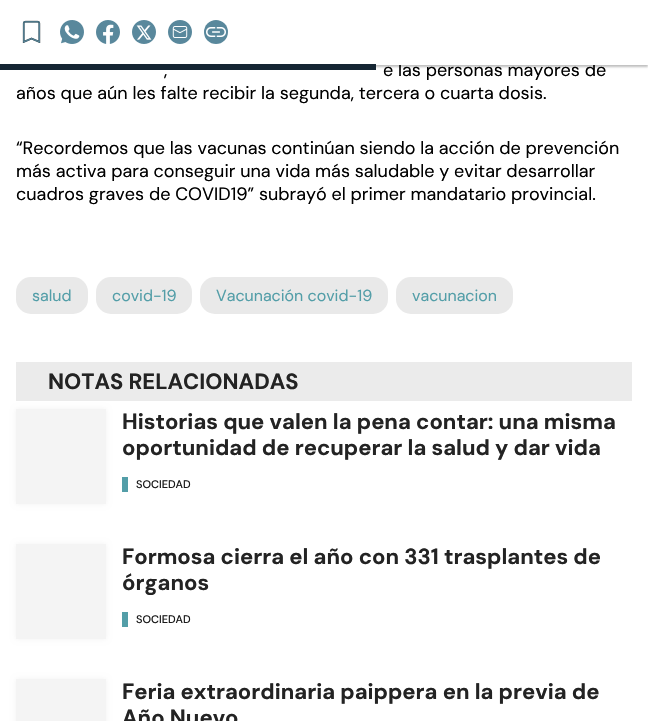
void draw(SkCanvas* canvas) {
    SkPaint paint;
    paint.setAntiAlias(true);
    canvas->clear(0xFFFFFFFF);
    paint.setColor(0x40000000);
    paint.setMaskFilter(SkMaskFilter::MakeBlur(kNormal_SkBlurStyle, 1));
    canvas->drawRect(SkRect::MakeXYWH(0, 2, 648, 65), paint);
    paint.setMaskFilter(nullptr);
    SkFont font1(fontMgr->matchFamilyStyle("DM Sans", SkFontStyle::Normal()), 18);
    font1.setSubpixel(true);
    paint.setColor(0xFF000000);
    canvas->drawString("e las personas mayores de", 383, 76, font1, paint);
    paint.setColor(0xFFFFFFFF);
    canvas->drawRect(SkRect::MakeXYWH(0, 0, 648, 65), paint);
    canvas->drawImageRect(SkImages::DeferredFromEncodedData(SkData::MakeFromFileName("img1.png")), SkRect::MakeXYWH(22, 20, 19, 23), SkSamplingOptions());
    canvas->drawImageRect(SkImages::DeferredFromEncodedData(SkData::MakeFromFileName("img2.png")), SkRect::MakeXYWH(60, 20, 24, 24), SkSamplingOptions());
    canvas->drawImageRect(SkImages::DeferredFromEncodedData(SkData::MakeFromFileName("img3.png")), SkRect::MakeXYWH(96, 20, 24, 24), SkSamplingOptions());
    canvas->drawImageRect(SkImages::DeferredFromEncodedData(SkData::MakeFromFileName("img4.png")), SkRect::MakeXYWH(132, 20, 24, 24), SkSamplingOptions());
    canvas->drawImageRect(SkImages::DeferredFromEncodedData(SkData::MakeFromFileName("img5.png")), SkRect::MakeXYWH(168, 20, 24, 24), SkSamplingOptions());
    paint.setColor(0xFF59889C);
    canvas->drawCircle(216, 32, 12, paint);
    canvas->drawImageRect(SkImages::DeferredFromEncodedData(SkData::MakeFromFileName("img6.png")), SkRect::MakeXYWH(206, 27, 20, 10), SkSamplingOptions());
    paint.setColor(0xFF152633);
    canvas->drawRect(SkRect::MakeXYWH(0, 64, 376, 6), paint);
    paint.setColor(0xFF000000);
    canvas->drawString(",", 164, 76, font1, paint);
    canvas->drawString("años que aún les falte recibir la segunda, tercera o cuarta dosis.", 16, 99, font1, paint);
    canvas->drawString("“Recordemos que las vacunas continúan siendo la acción de prevención", 16, 154, font1, paint);
    canvas->drawString("más activa para conseguir una vida más saludable y evitar desarrollar", 16, 177, font1, paint);
    canvas->drawString("cuadros graves de COVID19” subrayó el primer mandatario provincial.", 16, 200, font1, paint);
    paint.setColor(0xFFE9E9E9);
    canvas->drawRoundRect(SkRect::MakeXYWH(16, 277, 72, 37), 15, 15, paint);
    SkFont font2(fontMgr->matchFamilyStyle("DM Sans", SkFontStyle::Normal()), 16);
    font2.setSubpixel(true);
    paint.setColor(0xFF539EA8);
    canvas->drawString("salud", 32, 301, font2, paint);
    paint.setColor(0xFFE9E9E9);
    canvas->drawRoundRect(SkRect::MakeXYWH(96, 277, 96, 37), 15, 15, paint);
    paint.setColor(0xFF539EA8);
    canvas->drawString("covid-19", 112, 301, font2, paint);
    paint.setColor(0xFFE9E9E9);
    canvas->drawRoundRect(SkRect::MakeXYWH(200, 277, 188, 37), 15, 15, paint);
    paint.setColor(0xFF539EA8);
    canvas->drawString("Vacunación covid-19", 216, 301, font2, paint);
    paint.setColor(0xFFE9E9E9);
    canvas->drawRoundRect(SkRect::MakeXYWH(396, 277, 117, 37), 15, 15, paint);
    paint.setColor(0xFF539EA8);
    canvas->drawString("vacunacion", 412, 301, font2, paint);
    paint.setColor(0xFFEBEBEB);
    canvas->drawRect(SkRect::MakeXYWH(16, 362, 616, 39), paint);
    SkFont font3(fontMgr->matchFamilyStyle("DM Sans", SkFontStyle::Bold()), 22);
    font3.setSubpixel(true);
    paint.setColor(0xFF232323);
    canvas->drawString("NOTAS RELACIONADAS", 48, 389, font3, paint);
    paint.setColor(0x0D000000);
    paint.setMaskFilter(SkMaskFilter::MakeBlur(kNormal_SkBlurStyle, 2.5f));
    canvas->drawRect(SkRect::MakeXYWH(16, 409, 90, 95), paint);
    paint.setMaskFilter(nullptr);
    paint.setColor(0xFFF4F4F4);
    canvas->drawRect(SkRect::MakeXYWH(16, 409, 90, 95), paint);
    paint.setColor(0xFF232323);
    canvas->drawString("Historias que valen la pena contar: una misma", 122, 429, font3, paint);
    canvas->drawString("oportunidad de recuperar la salud y dar vida", 122, 455, font3, paint);
    paint.setColor(0xFF539EA8);
    canvas->drawRect(SkRect::MakeXYWH(122, 477, 6, 15), paint);
    SkFont font4(fontMgr->matchFamilyStyle("DM Sans", SkFontStyle(500, SkFontStyle::kNormal_Width, SkFontStyle::kUpright_Slant)), 11);
    font4.setSubpixel(true);
    paint.setColor(0xFF1B1B1B);
    canvas->drawString("SOCIEDAD", 136, 488, font4, paint);
    paint.setColor(0x0D000000);
    paint.setMaskFilter(SkMaskFilter::MakeBlur(kNormal_SkBlurStyle, 2.5f));
    canvas->drawRect(SkRect::MakeXYWH(16, 544, 90, 95), paint);
    paint.setMaskFilter(nullptr);
    paint.setColor(0xFFF4F4F4);
    canvas->drawRect(SkRect::MakeXYWH(16, 544, 90, 95), paint);
    paint.setColor(0xFF232323);
    canvas->drawString("Formosa cierra el año con 331 trasplantes de", 122, 564, font3, paint);
    canvas->drawString("órganos", 122, 590, font3, paint);
    paint.setColor(0xFF539EA8);
    canvas->drawRect(SkRect::MakeXYWH(122, 612, 6, 15), paint);
    paint.setColor(0xFF1B1B1B);
    canvas->drawString("SOCIEDAD", 136, 623, font4, paint);
    paint.setColor(0x0D000000);
    paint.setMaskFilter(SkMaskFilter::MakeBlur(kNormal_SkBlurStyle, 2.5f));
    canvas->drawRect(SkRect::MakeXYWH(16, 679, 90, 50), paint);
    paint.setMaskFilter(nullptr);
    paint.setColor(0xFFF4F4F4);
    canvas->drawRect(SkRect::MakeXYWH(16, 679, 90, 42), paint);
    paint.setColor(0xFF232323);
    canvas->drawString("Feria extraordinaria paippera en la previa de", 122, 699, font3, paint);
    canvas->drawString("Año Nuevo", 122, 725, font3, paint);
}
